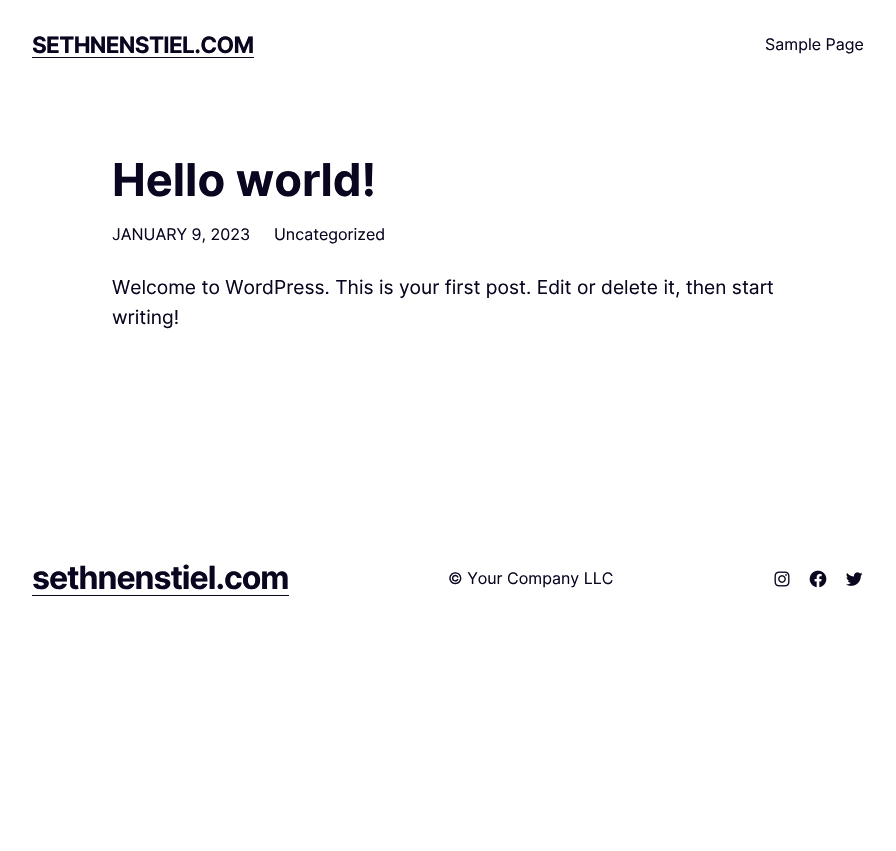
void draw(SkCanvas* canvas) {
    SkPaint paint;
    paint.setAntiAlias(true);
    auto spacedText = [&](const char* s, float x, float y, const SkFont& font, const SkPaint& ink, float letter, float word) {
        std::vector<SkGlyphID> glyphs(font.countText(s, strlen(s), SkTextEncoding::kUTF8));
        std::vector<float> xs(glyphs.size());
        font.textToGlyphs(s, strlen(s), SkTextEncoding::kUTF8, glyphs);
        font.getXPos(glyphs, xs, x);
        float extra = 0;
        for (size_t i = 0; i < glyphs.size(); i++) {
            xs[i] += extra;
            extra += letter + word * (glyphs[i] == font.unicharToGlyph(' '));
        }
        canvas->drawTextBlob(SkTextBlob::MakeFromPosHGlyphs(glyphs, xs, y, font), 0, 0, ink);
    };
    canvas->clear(0xFFFFFFFF);
    SkFont font1(fontMgr->matchFamilyStyle("Inter", SkFontStyle::Bold()), 22.6f);
    font1.setSubpixel(true);
    paint.setColor(0xFF0B0620);
    spacedText("SETHNENSTIEL.COM", 32, 53, font1, paint, -0.7f, 0);
    canvas->drawRect(SkRect::MakeXYWH(32, 57, 222, 1), paint);
    SkFont font2(fontMgr->matchFamilyStyle("Inter", SkFontStyle::Normal()), 16);
    font2.setSubpixel(true);
    canvas->drawString("Sample Page", 765, 50, font2, paint);
    SkFont font3(fontMgr->matchFamilyStyle("Inter", SkFontStyle::Bold()), 45.25f);
    font3.setSubpixel(true);
    canvas->drawString("Hello world!", 112, 196, font3, paint);
    canvas->drawString("JANUARY 9, 2023", 112, 240, font2, paint);
    canvas->drawString("Uncategorized", 274, 240, font2, paint);
    SkFont font4(fontMgr->matchFamilyStyle("Inter", SkFontStyle::Normal()), 19.2f);
    font4.setSubpixel(true);
    canvas->drawString("Welcome to WordPress. This is your first post. Edit or delete it, then start", 112, 294, font4, paint);
    canvas->drawString("writing!", 112, 324, font4, paint);
    SkFont font5(fontMgr->matchFamilyStyle("Inter", SkFontStyle::Bold()), 32);
    font5.setSubpixel(true);
    spacedText("sethnenstiel.com", 32, 589, font5, paint, -1, 0);
    canvas->drawRect(SkRect::MakeXYWH(32, 595, 257, 1), paint);
    canvas->drawString("© Your Company LLC", 448, 584, font2, paint);
    canvas->drawImageRect(SkImages::DeferredFromEncodedData(SkData::MakeFromFileName("img1.png")), SkRect::MakeXYWH(774, 571, 16, 16), SkSamplingOptions());
    canvas->drawImageRect(SkImages::DeferredFromEncodedData(SkData::MakeFromFileName("img2.png")), SkRect::MakeXYWH(809, 570, 18, 18), SkSamplingOptions());
    canvas->drawImageRect(SkImages::DeferredFromEncodedData(SkData::MakeFromFileName("img3.png")), SkRect::MakeXYWH(846, 572, 17, 14), SkSamplingOptions());
}
